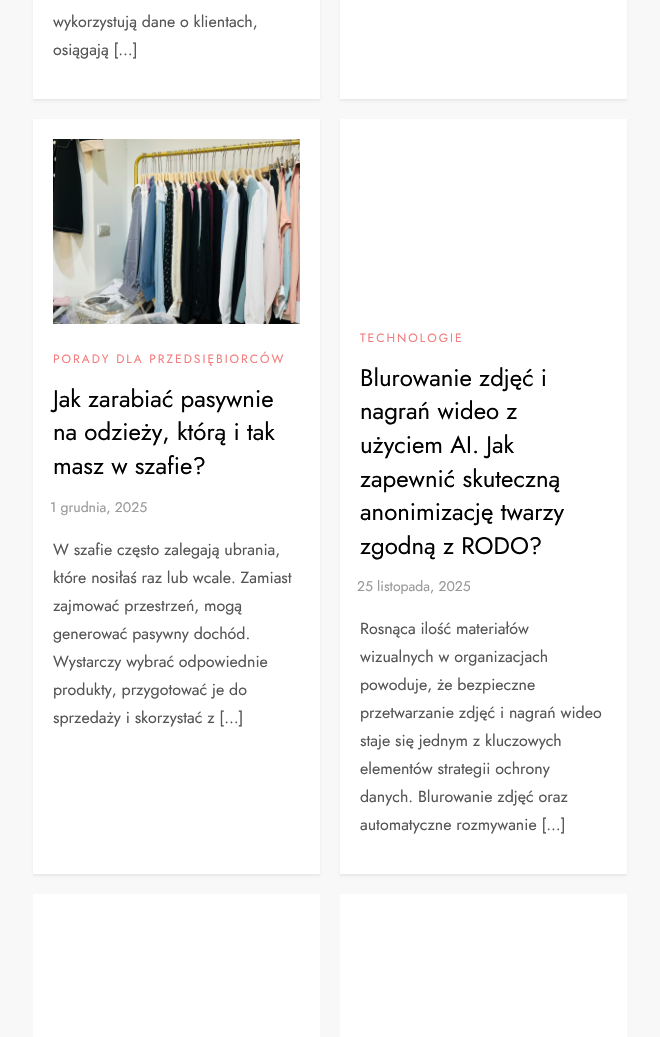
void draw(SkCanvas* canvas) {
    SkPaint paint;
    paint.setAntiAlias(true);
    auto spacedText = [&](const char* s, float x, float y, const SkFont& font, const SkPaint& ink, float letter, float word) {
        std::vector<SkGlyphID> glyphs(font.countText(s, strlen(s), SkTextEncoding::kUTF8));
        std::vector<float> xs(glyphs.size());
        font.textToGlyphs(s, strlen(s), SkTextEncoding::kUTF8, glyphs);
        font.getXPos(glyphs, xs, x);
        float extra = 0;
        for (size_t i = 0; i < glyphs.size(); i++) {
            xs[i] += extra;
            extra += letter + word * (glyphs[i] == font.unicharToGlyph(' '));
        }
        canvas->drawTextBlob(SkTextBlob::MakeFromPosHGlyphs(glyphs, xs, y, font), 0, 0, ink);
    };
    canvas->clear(0xFFF8F8F8);
    paint.setColor(0x0F000000);
    paint.setMaskFilter(SkMaskFilter::MakeBlur(kNormal_SkBlurStyle, 1));
    canvas->drawRect(SkRect::MakeXYWH(33, -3, 287, 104), paint);
    paint.setMaskFilter(nullptr);
    paint.setColor(0xFFFFFFFF);
    canvas->drawRect(SkRect::MakeXYWH(33, 0, 287, 99), paint);
    SkFont font1(fontMgr->matchFamilyStyle("Jost", SkFontStyle::Normal()), 16);
    font1.setSubpixel(true);
    paint.setColor(0xFF555555);
    canvas->drawString("wykorzystują dane o klientach,", 53, 27, font1, paint);
    canvas->drawString("osiągają […]", 53, 55, font1, paint);
    paint.setColor(0x0F000000);
    paint.setMaskFilter(SkMaskFilter::MakeBlur(kNormal_SkBlurStyle, 1));
    canvas->drawRect(SkRect::MakeXYWH(340, -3, 287, 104), paint);
    paint.setMaskFilter(nullptr);
    paint.setColor(0xFFFFFFFF);
    canvas->drawRect(SkRect::MakeXYWH(340, 0, 287, 99), paint);
    paint.setColor(0x0F000000);
    paint.setMaskFilter(SkMaskFilter::MakeBlur(kNormal_SkBlurStyle, 1));
    canvas->drawRect(SkRect::MakeXYWH(33, 121, 287, 755), paint);
    paint.setMaskFilter(nullptr);
    paint.setColor(0xFFFFFFFF);
    canvas->drawRect(SkRect::MakeXYWH(33, 119, 287, 755), paint);
    canvas->drawImageRect(SkImages::DeferredFromEncodedData(SkData::MakeFromFileName("img1.png")), SkRect::MakeXYWH(53, 139, 247, 185), SkSamplingOptions());
    SkFont font2(fontMgr->matchFamilyStyle("Jost", SkFontStyle::Normal()), 12);
    font2.setSubpixel(true);
    paint.setColor(0xFFF37E7E);
    spacedText("PORADY DLA PRZEDSIĘBIORCÓW", 53, 363, font2, paint, 2, 0);
    SkFont font3(fontMgr->matchFamilyStyle("Jost", SkFontStyle::Normal()), 24);
    font3.setSubpixel(true);
    paint.setColor(0xFF000000);
    canvas->drawString("Jak zarabiać pasywnie", 53, 407, font3, paint);
    canvas->drawString("na odzieży, którą i tak", 53, 440, font3, paint);
    canvas->drawString("masz w szafie?", 53, 474, font3, paint);
    SkFont font4(fontMgr->matchFamilyStyle("Jost", SkFontStyle::Normal()), 14);
    font4.setSubpixel(true);
    paint.setColor(0xFF999999);
    canvas->drawString("1 grudnia, 2025", 50, 512, font4, paint);
    paint.setColor(0xFF555555);
    canvas->drawString("W szafie często zalegają ubrania,", 53, 555, font1, paint);
    canvas->drawString("które nosiłaś raz lub wcale. Zamiast", 53, 583, font1, paint);
    canvas->drawString("zajmować przestrzeń, mogą", 53, 611, font1, paint);
    canvas->drawString("generować pasywny dochód.", 53, 639, font1, paint);
    canvas->drawString("Wystarczy wybrać odpowiednie", 53, 667, font1, paint);
    canvas->drawString("produkty, przygotować je do", 53, 695, font1, paint);
    canvas->drawString("sprzedaży i skorzystać z […]", 53, 723, font1, paint);
    paint.setColor(0x0F000000);
    paint.setMaskFilter(SkMaskFilter::MakeBlur(kNormal_SkBlurStyle, 1));
    canvas->drawRect(SkRect::MakeXYWH(340, 121, 287, 755), paint);
    paint.setMaskFilter(nullptr);
    paint.setColor(0xFFFFFFFF);
    canvas->drawRect(SkRect::MakeXYWH(340, 119, 287, 755), paint);
    paint.setColor(0xFFF37E7E);
    spacedText("TECHNOLOGIE", 360, 342, font2, paint, 2, 0);
    paint.setColor(0xFF000000);
    canvas->drawString("Blurowanie zdjęć i", 360, 386, font3, paint);
    canvas->drawString("nagrań wideo z", 360, 419, font3, paint);
    canvas->drawString("użyciem AI. Jak", 360, 453, font3, paint);
    canvas->drawString("zapewnić skuteczną", 360, 487, font3, paint);
    canvas->drawString("anonimizację twarzy", 360, 520, font3, paint);
    canvas->drawString("zgodną z RODO?", 360, 554, font3, paint);
    paint.setColor(0xFF999999);
    canvas->drawString("25 listopada, 2025", 357, 591, font4, paint);
    paint.setColor(0xFF555555);
    canvas->drawString("Rosnąca ilość materiałów", 360, 634, font1, paint);
    canvas->drawString("wizualnych w organizacjach", 360, 662, font1, paint);
    canvas->drawString("powoduje, że bezpieczne", 360, 690, font1, paint);
    canvas->drawString("przetwarzanie zdjęć i nagrań wideo", 360, 718, font1, paint);
    canvas->drawString("staje się jednym z kluczowych", 360, 746, font1, paint);
    canvas->drawString("elementów strategii ochrony", 360, 774, font1, paint);
    canvas->drawString("danych. Blurowanie zdjęć oraz", 360, 802, font1, paint);
    canvas->drawString("automatyczne rozmywanie […]", 360, 830, font1, paint);
    paint.setColor(0xFFFFFFFF);
    canvas->drawRect(SkRect::MakeXYWH(33, 894, 287, 143), paint);
    canvas->drawRect(SkRect::MakeXYWH(340, 894, 287, 143), paint);
}
